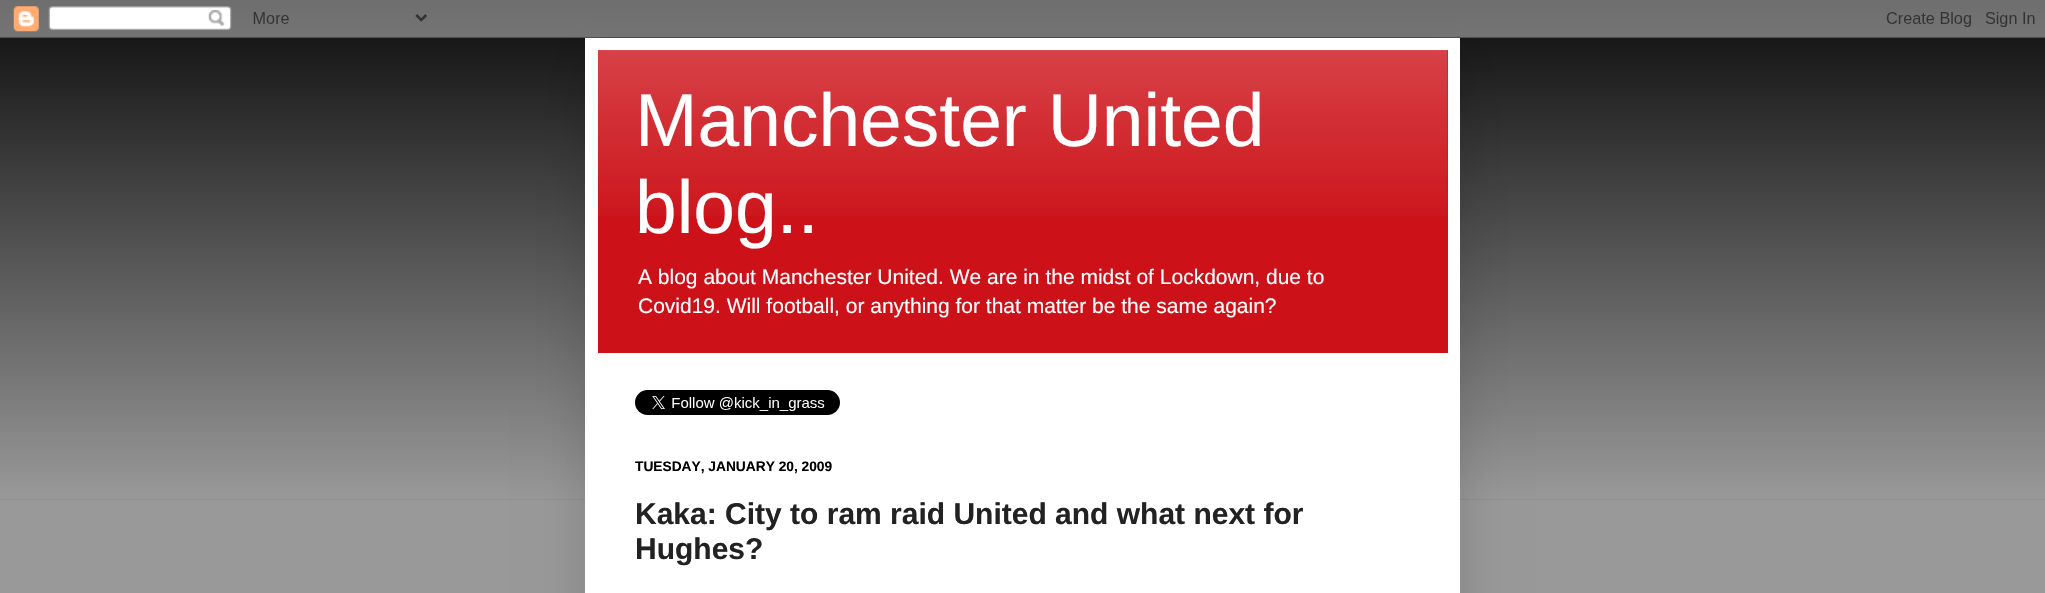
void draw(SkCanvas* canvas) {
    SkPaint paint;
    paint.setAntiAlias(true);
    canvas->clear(0xFF999999);
    paint.setColor(0xFF000000);
    canvas->drawRect(SkRect::MakeXYWH(0, 0, 2045, 500), paint);
    canvas->drawImageRect(SkImages::DeferredFromEncodedData(SkData::MakeFromFileName("img1.png")), SkRect::MakeXYWH(0, 0, 2045, 500), SkSamplingOptions());
    paint.setColor(0x26000000);
    paint.setMaskFilter(SkMaskFilter::MakeBlur(kNormal_SkBlurStyle, 25));
    canvas->drawRect(SkRect::MakeXYWH(585, 38, 875, 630), paint);
    paint.setMaskFilter(nullptr);
    canvas->drawImageRect(SkImages::DeferredFromEncodedData(SkData::MakeFromFileName("img2.png")), SkRect::MakeXYWH(0, 0, 2045, 38), SkSamplingOptions());
    paint.setColor(0xFFFFFFFF);
    canvas->drawRect(SkRect::MakeXYWH(585, 38, 875, 555), paint);
    paint.setColor(0xFFCC1118);
    canvas->drawRect(SkRect::MakeXYWH(598, 50, 850, 303), paint);
    canvas->drawImageRect(SkImages::DeferredFromEncodedData(SkData::MakeFromFileName("img3.png")), SkRect::MakeXYWH(598, 50, 850, 166), SkSamplingOptions());
    SkFont font1(fontMgr->matchFamilyStyle("Liberation Sans", SkFontStyle::Normal()), 75);
    font1.setSubpixel(true);
    paint.setColor(0xFFFFFFFF);
    canvas->drawString("Manchester United", 635, 146, font1, paint);
    canvas->drawString("blog..", 635, 233, font1, paint);
    SkFont font2(fontMgr->matchFamilyStyle("Liberation Sans", SkFontStyle::Normal()), 21);
    font2.setSubpixel(true);
    canvas->drawString("A blog about Manchester United. We are in the midst of Lockdown, due to", 638, 284, font2, paint);
    canvas->drawString("Covid19. Will football, or anything for that matter be the same again?", 638, 313, font2, paint);
    canvas->drawImageRect(SkImages::DeferredFromEncodedData(SkData::MakeFromFileName("img4.png")), SkRect::MakeXYWH(635, 390, 205, 25), SkSamplingOptions());
    SkFont font3(fontMgr->matchFamilyStyle("Liberation Sans", SkFontStyle::Bold()), 13.75f);
    font3.setSubpixel(true);
    paint.setColor(0xFF000000);
    canvas->drawString("TUESDAY, JANUARY 20, 2009", 635, 471, font3, paint);
    SkFont font4(fontMgr->matchFamilyStyle("Liberation Sans", SkFontStyle::Bold()), 30);
    font4.setSubpixel(true);
    paint.setColor(0xFF222222);
    canvas->drawString("Kaka: City to ram raid United and what next for", 635, 524, font4, paint);
    canvas->drawString("Hughes?", 635, 559, font4, paint);
}
